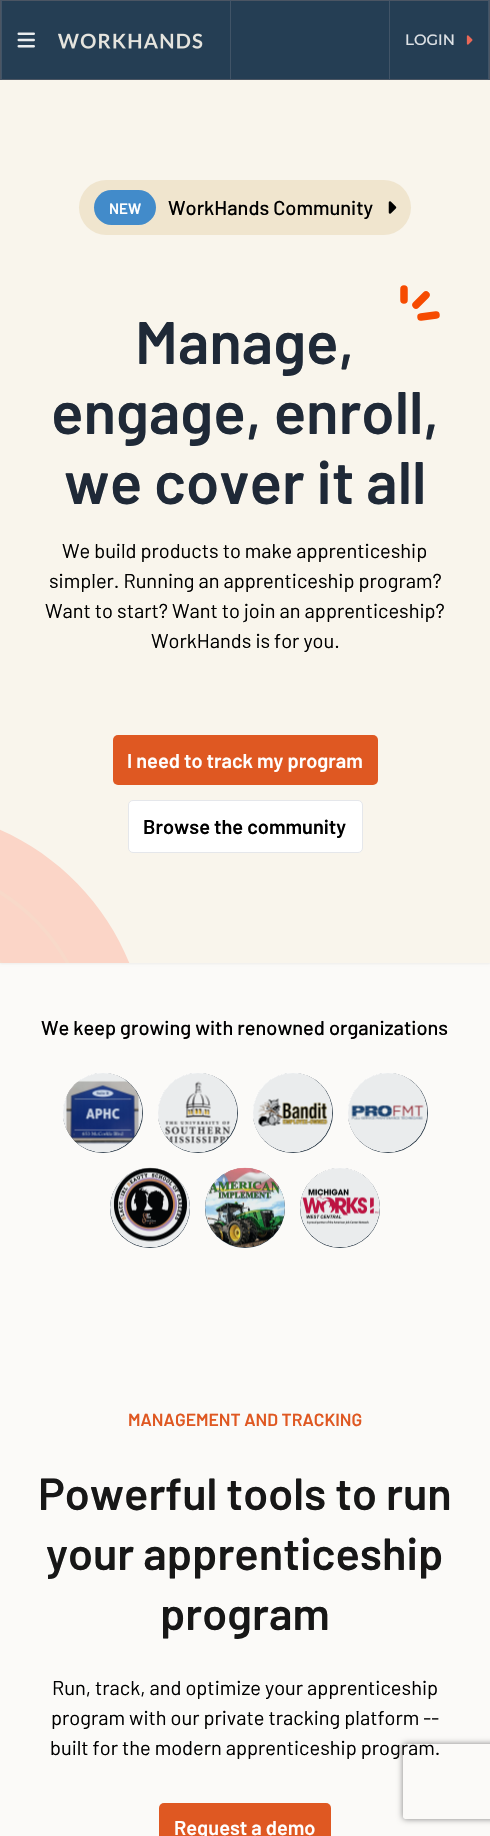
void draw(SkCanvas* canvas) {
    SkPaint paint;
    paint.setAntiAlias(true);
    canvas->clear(0xFFFBFAF8);
    paint.setColor(0xFF253E54);
    canvas->drawRect(SkRect::MakeXYWH(0.5f, 0.5f, 489, 79), paint);
    paint.setStyle(SkPaint::kStroke_Style);
    paint.setStrokeWidth(1);
    paint.setColor(0xFF4B5563);
    canvas->drawRect(SkRect::MakeXYWH(0.5f, 0.5f, 489, 79), paint);
    paint.setStyle(SkPaint::kFill_Style);
    paint.setColor(0xE6445669);
    canvas->drawRect(SkRect::MakeXYWH(230, 0, 1, 80), paint);
    canvas->drawRect(SkRect::MakeXYWH(1, 0, 1, 80), paint);
    canvas->drawImageRect(SkImages::DeferredFromEncodedData(SkData::MakeFromFileName("img1.png")), SkRect::MakeXYWH(17, 32, 18, 16), SkSamplingOptions());
    canvas->drawImageRect(SkImages::DeferredFromEncodedData(SkData::MakeFromFileName("img2.png")), SkRect::MakeXYWH(58, 33, 145, 16), SkSamplingOptions());
    canvas->drawRect(SkRect::MakeXYWH(488, 0, 1, 80), paint);
    canvas->drawRect(SkRect::MakeXYWH(389, 0, 1, 80), paint);
    SkFont font1(fontMgr->matchFamilyStyle("Montserrat", SkFontStyle(500, SkFontStyle::kNormal_Width, SkFontStyle::kUpright_Slant)), 15);
    font1.setSubpixel(true);
    paint.setColor(0xFFDEE2E6);
    canvas->drawString("LOGIN", 405, 45, font1, paint);
    canvas->drawImageRect(SkImages::DeferredFromEncodedData(SkData::MakeFromFileName("img3.png")), SkRect::MakeXYWH(466, 35, 7, 10), SkSamplingOptions());
    paint.setColor(0x0D000000);
    paint.setMaskFilter(SkMaskFilter::MakeBlur(kNormal_SkBlurStyle, 1));
    canvas->drawRect(SkRect::MakeXYWH(0, 81, 490, 883), paint);
    paint.setMaskFilter(nullptr);
    paint.setColor(0xFFF9F5EC);
    canvas->drawRect(SkRect::MakeXYWH(0, 80, 490, 883), paint);
    paint.setColor(0xFFF0E5CE);
    canvas->drawRoundRect(SkRect::MakeXYWH(79, 180, 332, 55), 27.5f, 27.5f, paint);
    paint.setColor(0xFF428BCA);
    canvas->drawRoundRect(SkRect::MakeXYWH(94, 190, 62, 35), 17.5f, 17.5f, paint);
    SkFont font2(fontMgr->matchFamilyStyle("Barlow", SkFontStyle(600, SkFontStyle::kNormal_Width, SkFontStyle::kUpright_Slant)), 15);
    font2.setSubpixel(true);
    paint.setColor(0xFFFFFFFF);
    canvas->drawString("NEW", 109, 214, font2, paint);
    SkFont font3(fontMgr->matchFamilyStyle("Barlow", SkFontStyle(500, SkFontStyle::kNormal_Width, SkFontStyle::kUpright_Slant)), 20);
    font3.setSubpixel(true);
    paint.setColor(0xFF000000);
    canvas->drawString("WorkHands Community", 168, 215, font3, paint);
    canvas->drawImageRect(SkImages::DeferredFromEncodedData(SkData::MakeFromFileName("img4.png")), SkRect::MakeXYWH(388, 201, 9, 13), SkSamplingOptions());
    paint.setStyle(SkPaint::kStroke_Style);
    paint.setStrokeWidth(7.5f);
    paint.setStrokeCap(SkPaint::kRound_Cap);
    paint.setColor(0xFFF64B01);
    canvas->drawPath(SkPathBuilder().moveTo(404, 300).lineTo(404, 289).moveTo(416, 305).lineTo(426, 295).moveTo(421, 317).lineTo(436, 315).detach(), paint);
    SkFont font4(fontMgr->matchFamilyStyle("Barlow", SkFontStyle(600, SkFontStyle::kNormal_Width, SkFontStyle::kUpright_Slant)), 60);
    font4.setSubpixel(true);
    paint.setStyle(SkPaint::kFill_Style);
    paint.setColor(0xFF1F2937);
    canvas->drawString("Manage,", 135, 364, font4, paint);
    canvas->drawString("engage, enroll,", 51, 434, font4, paint);
    canvas->drawString("we cover it all", 64, 504, font4, paint);
    SkFont font5(fontMgr->matchFamilyStyle("Barlow", SkFontStyle::Normal()), 20);
    font5.setSubpixel(true);
    paint.setColor(0xFF000000);
    canvas->drawString("We build products to make apprenticeship", 62, 558, font5, paint);
    canvas->drawString("simpler. Running an apprenticeship program?", 49, 588, font5, paint);
    canvas->drawString("Want to start? Want to join an apprenticeship?", 45, 618, font5, paint);
    canvas->drawString("WorkHands is for you.", 151, 648, font5, paint);
    paint.setColor(0xFFDF5822);
    canvas->drawRoundRect(SkRect::MakeXYWH(113, 735, 265, 50), 5, 5, paint);
    SkFont font6(fontMgr->matchFamilyStyle("Barlow", SkFontStyle(600, SkFontStyle::kNormal_Width, SkFontStyle::kUpright_Slant)), 20);
    font6.setSubpixel(true);
    paint.setColor(0xFFFFFFFF);
    canvas->drawString("I need to track my program", 127, 768, font6, paint);
    canvas->drawRoundRect(SkRect::MakeXYWH(128.5f, 800.5f, 234, 52), 4.5f, 4.5f, paint);
    paint.setStyle(SkPaint::kStroke_Style);
    paint.setStrokeWidth(1);
    paint.setStrokeCap(SkPaint::kButt_Cap);
    paint.setColor(0xFFE5E7EB);
    canvas->drawRoundRect(SkRect::MakeXYWH(128.5f, 800.5f, 234, 52), 4.5f, 4.5f, paint);
    paint.setStyle(SkPaint::kFill_Style);
    paint.setColor(0xFF000000);
    canvas->drawString("Browse the community", 143, 834, font6, paint);
    canvas->save();
    canvas->clipRect(SkRect::MakeXYWH(0, 809, 148, 154));
    paint.setColor(0xFFFBD5C7);
    canvas->drawPath(SkPathBuilder().moveTo(147, 1054).lineTo(-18, 1054).cubicTo(-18, 1010, -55, 973, -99, 973).lineTo(-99, 809).cubicTo(36, 809, 147, 919, 147, 1054).close().detach(), paint);
    paint.setColor(0xFFF8D9C9);
    canvas->drawPath(SkPathBuilder().moveTo(38, 1054).lineTo(34, 1054).cubicTo(34, 981, -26, 921, -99, 921).lineTo(-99, 917).cubicTo(-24, 917, 38, 979, 38, 1054).close().detach(), paint);
    canvas->drawPath(SkPathBuilder().moveTo(90, 1054).cubicTo(89, 951, 4, 866, -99, 866).lineTo(-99, 862).cubicTo(6, 862, 93, 949, 93, 1054).close().detach(), paint);
    canvas->restore();
    paint.setColor(0xFF000000);
    canvas->drawString("We keep growing with renowned organizations", 41, 1035, font3, paint);
    paint.setColor(0xFF283846);
    canvas->drawCircle(103, 1113, 40, paint);
    canvas->drawImageRect(SkImages::DeferredFromEncodedData(SkData::MakeFromFileName("img5.png")), SkRect::MakeXYWH(63, 1073, 80, 80), SkSamplingOptions());
    canvas->drawCircle(198, 1113, 40, paint);
    canvas->drawImageRect(SkImages::DeferredFromEncodedData(SkData::MakeFromFileName("img6.png")), SkRect::MakeXYWH(158, 1073, 80, 80), SkSamplingOptions());
    canvas->drawCircle(293, 1113, 40, paint);
    canvas->drawImageRect(SkImages::DeferredFromEncodedData(SkData::MakeFromFileName("img7.png")), SkRect::MakeXYWH(253, 1073, 80, 80), SkSamplingOptions());
    canvas->drawCircle(388, 1113, 40, paint);
    canvas->drawImageRect(SkImages::DeferredFromEncodedData(SkData::MakeFromFileName("img8.png")), SkRect::MakeXYWH(348, 1073, 80, 80), SkSamplingOptions());
    canvas->drawCircle(150, 1208, 40, paint);
    canvas->drawImageRect(SkImages::DeferredFromEncodedData(SkData::MakeFromFileName("img9.png")), SkRect::MakeXYWH(110, 1167, 80, 81), SkSamplingOptions());
    canvas->drawCircle(245, 1208, 40, paint);
    canvas->drawImageRect(SkImages::DeferredFromEncodedData(SkData::MakeFromFileName("img10.png")), SkRect::MakeXYWH(205, 1167, 80, 81), SkSamplingOptions());
    canvas->drawCircle(340, 1208, 40, paint);
    canvas->drawImageRect(SkImages::DeferredFromEncodedData(SkData::MakeFromFileName("img11.png")), SkRect::MakeXYWH(300, 1168, 80, 80), SkSamplingOptions());
    SkFont font7(fontMgr->matchFamilyStyle("Barlow", SkFontStyle(600, SkFontStyle::kNormal_Width, SkFontStyle::kUpright_Slant)), 17.5f);
    font7.setSubpixel(true);
    paint.setColor(0xFFDF5822);
    canvas->drawString("MANAGEMENT AND TRACKING", 128, 1426, font7, paint);
    SkFont font8(fontMgr->matchFamilyStyle("Barlow", SkFontStyle(600, SkFontStyle::kNormal_Width, SkFontStyle::kUpright_Slant)), 45);
    font8.setSubpixel(true);
    paint.setColor(0xFF171717);
    canvas->drawString("Powerful tools to run", 38, 1510, font8, paint);
    canvas->drawString("your apprenticeship", 46, 1570, font8, paint);
    canvas->drawString("program", 160, 1630, font8, paint);
    paint.setColor(0xFF000000);
    canvas->drawString("Run, track, and optimize your apprenticeship", 52, 1695, font5, paint);
    canvas->drawString("program with our private tracking platform --", 51, 1725, font5, paint);
    canvas->drawString("built for the modern apprenticeship program.", 50, 1755, font5, paint);
    paint.setColor(0xFFDF5822);
    canvas->drawRoundRect(SkRect::MakeXYWH(159, 1803, 172, 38), 5, 5, paint);
    paint.setColor(0xFFFFFFFF);
    canvas->drawString("Request a demo", 174, 1835, font6, paint);
    canvas->save();
    canvas->clipPath(SkPathBuilder(SkPathFillType::kEvenOdd).moveTo(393, 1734).lineTo(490, 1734).lineTo(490, 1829).lineTo(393, 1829).close().moveTo(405.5f, 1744).lineTo(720.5f, 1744).cubicTo(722, 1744, 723, 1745, 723, 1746.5f).lineTo(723, 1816.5f).cubicTo(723, 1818, 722, 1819, 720.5f, 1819).lineTo(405.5f, 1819).cubicTo(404, 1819, 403, 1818, 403, 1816.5f).lineTo(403, 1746.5f).cubicTo(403, 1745, 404, 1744, 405.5f, 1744).close().detach(), true);
    paint.setColor(0xFF808080);
    paint.setMaskFilter(SkMaskFilter::MakeBlur(kNormal_SkBlurStyle, 3));
    canvas->drawRoundRect(SkRect::MakeXYWH(403, 1744, 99, 75), 2.5f, 2.5f, paint);
    paint.setMaskFilter(nullptr);
    canvas->restore();
}
